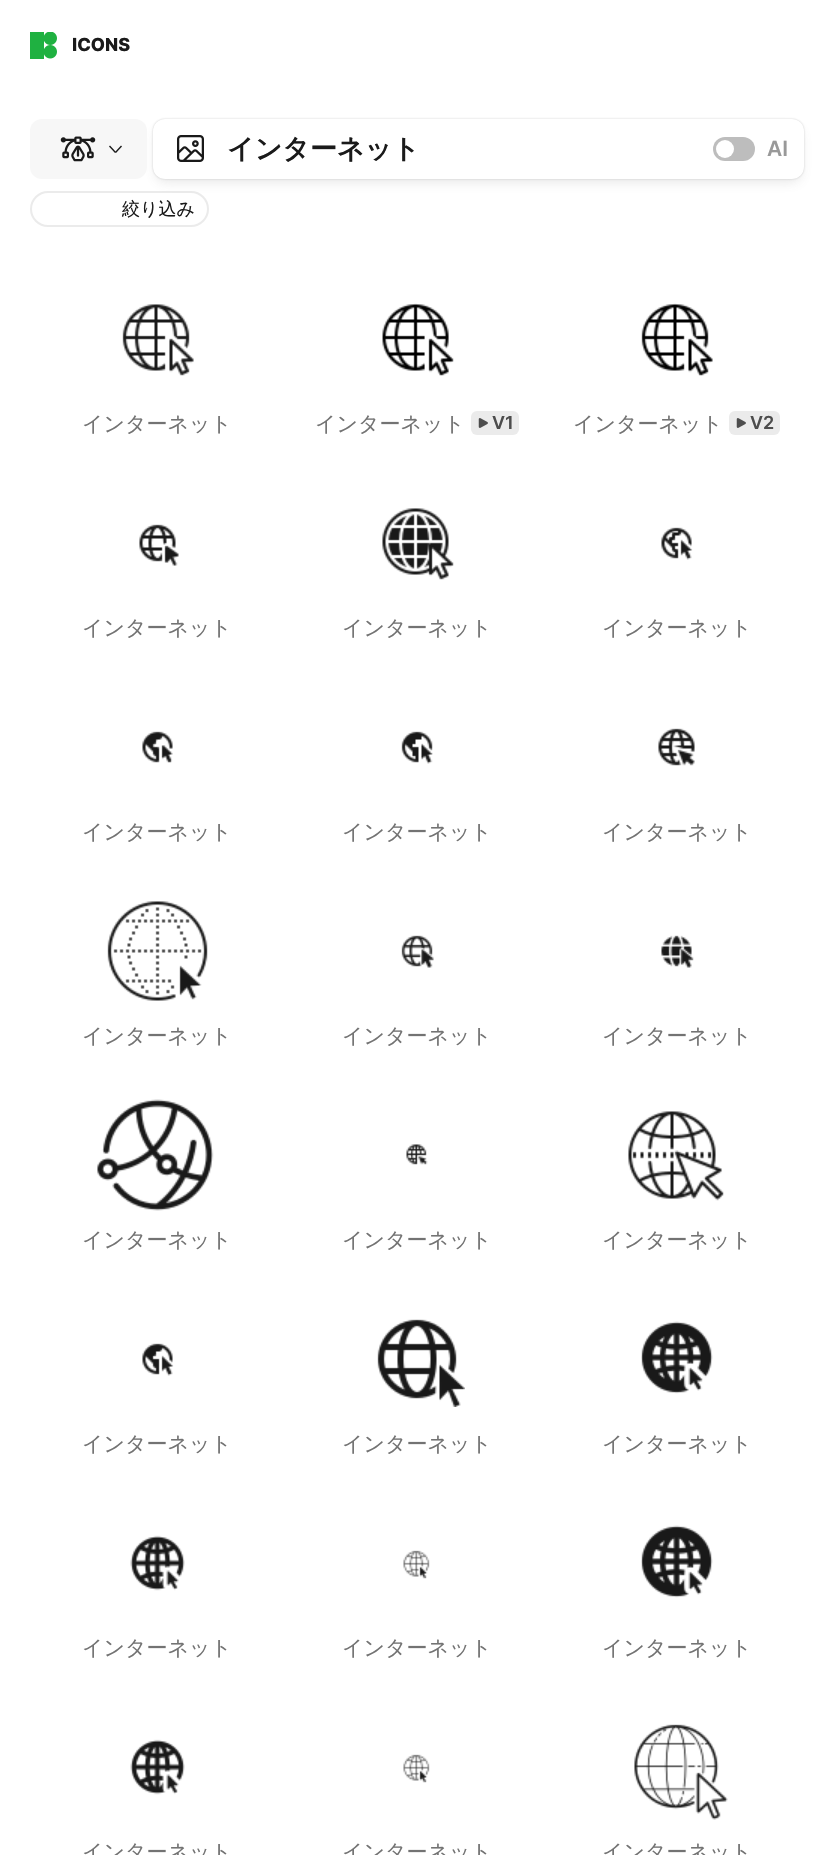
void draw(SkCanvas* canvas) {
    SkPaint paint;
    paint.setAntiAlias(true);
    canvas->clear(0xFFFFFFFF);
    canvas->drawImageRect(SkImages::DeferredFromEncodedData(SkData::MakeFromFileName("img1.png")), SkRect::MakeXYWH(30, 32, 27, 27), SkSamplingOptions());
    SkFont font1(fontMgr->matchFamilyStyle("Inter", SkFontStyle(800, SkFontStyle::kNormal_Width, SkFontStyle::kUpright_Slant)), 18);
    font1.setSubpixel(true);
    paint.setColor(0xFF1A1A1A);
    canvas->drawString("ICONS", 72, 51, font1, paint);
    paint.setStyle(SkPaint::kStroke_Style);
    paint.setStrokeWidth(2);
    paint.setColor(0xFFEBEBEB);
    canvas->drawRoundRect(SkRect::MakeXYWH(31, 192, 177, 34), 17, 17, paint);
    paint.setStyle(SkPaint::kFill_Style);
    paint.setColor(0x26606060);
    paint.setMaskFilter(SkMaskFilter::MakeBlur(kNormal_SkBlurStyle, 6));
    canvas->drawRoundRect(SkRect::MakeXYWH(156, 128, 645, 54), 9, 9, paint);
    paint.setMaskFilter(nullptr);
    paint.setColor(0xFFF7F7F7);
    canvas->drawRoundRect(SkRect::MakeXYWH(30, 119, 117, 60), 12, 12, paint);
    canvas->drawImageRect(SkImages::DeferredFromEncodedData(SkData::MakeFromFileName("img2.png")), SkRect::MakeXYWH(60, 136, 36, 26), SkSamplingOptions());
    paint.setColor(0xFF1A1A1A);
    canvas->drawPath(SkPathBuilder().moveTo(110, 145.5f).lineTo(116, 152).lineTo(115, 153).lineTo(109, 146.5f).close().detach(), paint);
    canvas->drawPath(SkPathBuilder().moveTo(115, 152).lineTo(121, 145.5f).lineTo(122, 146.5f).lineTo(116, 153).close().detach(), paint);
    paint.setColor(0x4F606060);
    paint.setMaskFilter(SkMaskFilter::MakeBlur(kNormal_SkBlurStyle, 1));
    canvas->drawRoundRect(SkRect::MakeXYWH(153, 119, 651, 60), 12, 12, paint);
    paint.setMaskFilter(nullptr);
    paint.setColor(0xFFFFFFFF);
    canvas->drawRoundRect(SkRect::MakeXYWH(153, 119, 651, 60), 12, 12, paint);
    canvas->drawImageRect(SkImages::DeferredFromEncodedData(SkData::MakeFromFileName("img3.png")), SkRect::MakeXYWH(177, 135, 27, 27), SkSamplingOptions());
    SkFont font2(fontMgr->matchFamilyStyle("WenQuanYi Zen Hei", SkFontStyle::Bold()), 27);
    font2.setSubpixel(true);
    paint.setColor(0xFF1A1A1A);
    canvas->drawString("インターネット", 227, 158, font2, paint);
    paint.setColor(0xFFBDBDBD);
    canvas->drawRoundRect(SkRect::MakeXYWH(713, 137, 42, 24), 12, 12, paint);
    paint.setColor(0xFFFFFFFF);
    canvas->drawCircle(725, 149, 9, paint);
    SkFont font3(fontMgr->matchFamilyStyle("Inter", SkFontStyle(600, SkFontStyle::kNormal_Width, SkFontStyle::kUpright_Slant)), 21);
    font3.setSubpixel(true);
    paint.setColor(0xFF999999);
    canvas->drawString("AI", 767, 156, font3, paint);
    SkFont font4(fontMgr->matchFamilyStyle("WenQuanYi Zen Hei", SkFontStyle(500, SkFontStyle::kNormal_Width, SkFontStyle::kUpright_Slant)), 18);
    font4.setSubpixel(true);
    paint.setColor(0xFF1A1A1A);
    canvas->drawString("絞り込み", 122, 215, font4, paint);
    canvas->drawImageRect(SkImages::DeferredFromEncodedData(SkData::MakeFromFileName("img4.png")), SkRect::MakeXYWH(122, 304, 72, 72), SkSamplingOptions());
    SkFont font5(fontMgr->matchFamilyStyle("WenQuanYi Zen Hei", SkFontStyle(500, SkFontStyle::kNormal_Width, SkFontStyle::kUpright_Slant)), 21);
    font5.setSubpixel(true);
    paint.setColor(0xFF737373);
    canvas->drawString("インターネット", 82, 431, font5, paint);
    canvas->drawImageRect(SkImages::DeferredFromEncodedData(SkData::MakeFromFileName("img5.png")), SkRect::MakeXYWH(382, 303, 72, 73), SkSamplingOptions());
    canvas->drawString("インターネット", 315, 431, font5, paint);
    paint.setColor(0xFFEBEBEB);
    canvas->drawRoundRect(SkRect::MakeXYWH(471, 411, 48, 24), 6, 6, paint);
    canvas->drawImageRect(SkImages::DeferredFromEncodedData(SkData::MakeFromFileName("img6.png")), SkRect::MakeXYWH(478, 418, 10, 10), SkSamplingOptions());
    SkFont font6(fontMgr->matchFamilyStyle("Inter", SkFontStyle(600, SkFontStyle::kNormal_Width, SkFontStyle::kUpright_Slant)), 18);
    font6.setSubpixel(true);
    paint.setColor(0xFF4D4D4D);
    canvas->drawString("V1", 492, 429, font6, paint);
    canvas->drawImageRect(SkImages::DeferredFromEncodedData(SkData::MakeFromFileName("img7.png")), SkRect::MakeXYWH(641, 303, 72, 73), SkSamplingOptions());
    paint.setColor(0xFF737373);
    canvas->drawString("インターネット", 573, 431, font5, paint);
    paint.setColor(0xFFEBEBEB);
    canvas->drawRoundRect(SkRect::MakeXYWH(729, 411, 51, 24), 6, 6, paint);
    canvas->drawImageRect(SkImages::DeferredFromEncodedData(SkData::MakeFromFileName("img6.png")), SkRect::MakeXYWH(736, 418, 10, 10), SkSamplingOptions());
    paint.setColor(0xFF4D4D4D);
    canvas->drawString("V2", 750, 429, font6, paint);
    canvas->drawImageRect(SkImages::DeferredFromEncodedData(SkData::MakeFromFileName("img8.png")), SkRect::MakeXYWH(139, 524, 40, 42), SkSamplingOptions());
    paint.setColor(0xFF737373);
    canvas->drawString("インターネット", 82, 635, font5, paint);
    canvas->drawImageRect(SkImages::DeferredFromEncodedData(SkData::MakeFromFileName("img9.png")), SkRect::MakeXYWH(382, 508, 72, 72), SkSamplingOptions());
    canvas->drawString("インターネット", 342, 635, font5, paint);
    canvas->drawImageRect(SkImages::DeferredFromEncodedData(SkData::MakeFromFileName("img10.png")), SkRect::MakeXYWH(661, 527, 32, 33), SkSamplingOptions());
    canvas->drawString("インターネット", 602, 635, font5, paint);
    canvas->drawImageRect(SkImages::DeferredFromEncodedData(SkData::MakeFromFileName("img11.png")), SkRect::MakeXYWH(142, 731, 31, 32), SkSamplingOptions());
    canvas->drawString("インターネット", 82, 839, font5, paint);
    canvas->drawImageRect(SkImages::DeferredFromEncodedData(SkData::MakeFromFileName("img12.png")), SkRect::MakeXYWH(401, 731, 32, 33), SkSamplingOptions());
    canvas->drawString("インターネット", 342, 839, font5, paint);
    canvas->drawImageRect(SkImages::DeferredFromEncodedData(SkData::MakeFromFileName("img13.png")), SkRect::MakeXYWH(658, 728, 37, 38), SkSamplingOptions());
    canvas->drawString("インターネット", 602, 839, font5, paint);
    canvas->drawImageRect(SkImages::DeferredFromEncodedData(SkData::MakeFromFileName("img14.png")), SkRect::MakeXYWH(107, 901, 101, 100), SkSamplingOptions());
    canvas->drawString("インターネット", 82, 1043, font5, paint);
    canvas->drawImageRect(SkImages::DeferredFromEncodedData(SkData::MakeFromFileName("img15.png")), SkRect::MakeXYWH(401, 935, 33, 33), SkSamplingOptions());
    canvas->drawString("インターネット", 342, 1043, font5, paint);
    canvas->drawImageRect(SkImages::DeferredFromEncodedData(SkData::MakeFromFileName("img16.png")), SkRect::MakeXYWH(661, 935, 33, 33), SkSamplingOptions());
    canvas->drawString("インターネット", 602, 1043, font5, paint);
    canvas->drawImageRect(SkImages::DeferredFromEncodedData(SkData::MakeFromFileName("img17.png")), SkRect::MakeXYWH(97, 1099, 117, 112), SkSamplingOptions());
    canvas->drawString("インターネット", 82, 1247, font5, paint);
    canvas->drawImageRect(SkImages::DeferredFromEncodedData(SkData::MakeFromFileName("img18.png")), SkRect::MakeXYWH(406, 1144, 22, 21), SkSamplingOptions());
    canvas->drawString("インターネット", 342, 1247, font5, paint);
    canvas->drawImageRect(SkImages::DeferredFromEncodedData(SkData::MakeFromFileName("img19.png")), SkRect::MakeXYWH(628, 1111, 96, 90), SkSamplingOptions());
    canvas->drawString("インターネット", 602, 1247, font5, paint);
    canvas->drawImageRect(SkImages::DeferredFromEncodedData(SkData::MakeFromFileName("img20.png")), SkRect::MakeXYWH(142, 1343, 32, 33), SkSamplingOptions());
    canvas->drawString("インターネット", 82, 1451, font5, paint);
    canvas->drawImageRect(SkImages::DeferredFromEncodedData(SkData::MakeFromFileName("img21.png")), SkRect::MakeXYWH(377, 1319, 88, 88), SkSamplingOptions());
    canvas->drawString("インターネット", 342, 1451, font5, paint);
    canvas->drawImageRect(SkImages::DeferredFromEncodedData(SkData::MakeFromFileName("img22.png")), SkRect::MakeXYWH(641, 1321, 72, 73), SkSamplingOptions());
    canvas->drawString("インターネット", 602, 1451, font5, paint);
    canvas->drawImageRect(SkImages::DeferredFromEncodedData(SkData::MakeFromFileName("img23.png")), SkRect::MakeXYWH(130, 1535, 55, 56), SkSamplingOptions());
    canvas->drawString("インターネット", 82, 1655, font5, paint);
    canvas->drawImageRect(SkImages::DeferredFromEncodedData(SkData::MakeFromFileName("img24.png")), SkRect::MakeXYWH(403, 1550, 27, 29), SkSamplingOptions());
    canvas->drawString("インターネット", 342, 1655, font5, paint);
    canvas->drawImageRect(SkImages::DeferredFromEncodedData(SkData::MakeFromFileName("img22.png")), SkRect::MakeXYWH(641, 1525, 72, 73), SkSamplingOptions());
    canvas->drawString("インターネット", 602, 1655, font5, paint);
    canvas->drawImageRect(SkImages::DeferredFromEncodedData(SkData::MakeFromFileName("img23.png")), SkRect::MakeXYWH(130, 1739, 55, 56), SkSamplingOptions());
    canvas->drawString("インターネット", 82, 1859, font5, paint);
    canvas->drawImageRect(SkImages::DeferredFromEncodedData(SkData::MakeFromFileName("img24.png")), SkRect::MakeXYWH(403, 1754, 27, 29), SkSamplingOptions());
    canvas->drawString("インターネット", 342, 1859, font5, paint);
    canvas->drawImageRect(SkImages::DeferredFromEncodedData(SkData::MakeFromFileName("img25.png")), SkRect::MakeXYWH(634, 1724, 94, 96), SkSamplingOptions());
    canvas->drawString("インターネット", 602, 1859, font5, paint);
}
